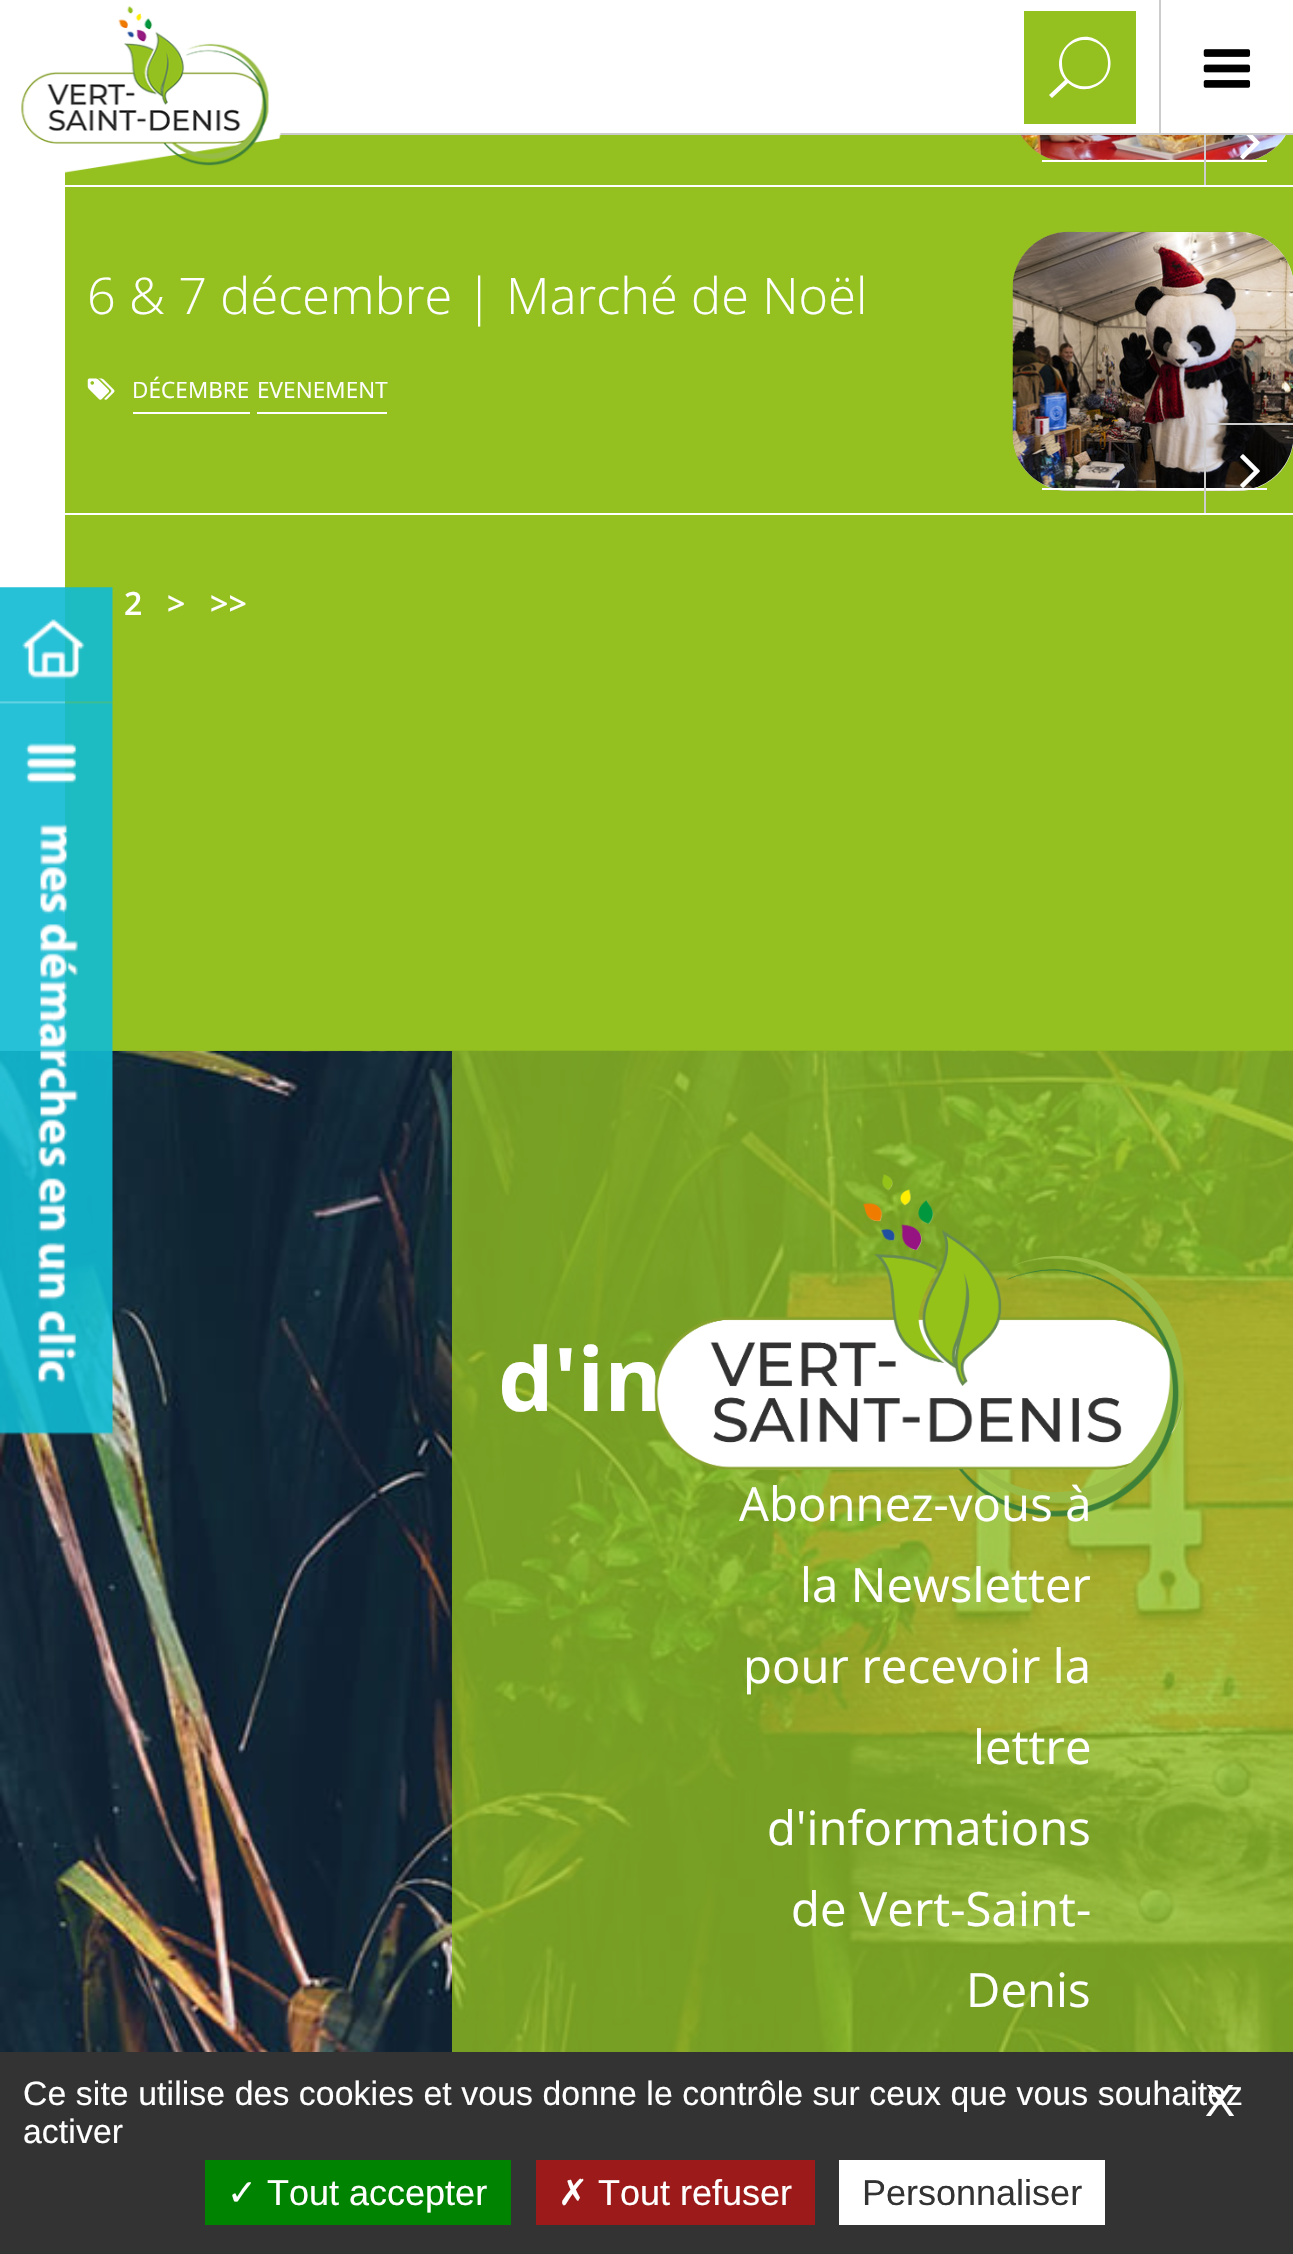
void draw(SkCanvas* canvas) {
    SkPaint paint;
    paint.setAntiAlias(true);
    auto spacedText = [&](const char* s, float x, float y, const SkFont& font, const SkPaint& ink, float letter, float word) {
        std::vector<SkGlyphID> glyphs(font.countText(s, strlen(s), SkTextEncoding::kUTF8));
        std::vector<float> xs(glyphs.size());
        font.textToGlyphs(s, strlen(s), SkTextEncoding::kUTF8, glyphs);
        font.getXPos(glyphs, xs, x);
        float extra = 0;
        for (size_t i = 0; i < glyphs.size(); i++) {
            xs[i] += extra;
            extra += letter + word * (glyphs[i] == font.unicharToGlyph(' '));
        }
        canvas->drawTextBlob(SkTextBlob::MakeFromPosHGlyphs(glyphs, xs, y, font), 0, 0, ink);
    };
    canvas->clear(0xFFFFFFFF);
    paint.setColor(0xFF94C11F);
    canvas->drawRect(SkRect::MakeXYWH(65, 135, 1228, 916), paint);
    paint.setColor(0xFFEEEEEE);
    canvas->drawRoundRect(SkRect::MakeXYWH(1013, -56, 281, 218), 56, 56, paint);
    paint.setColor(0xFFFFFFFF);
    canvas->drawRect(SkRect::MakeXYWH(1013, 0, 280, 133), paint);
    paint.setColor(0xFFCCCCCC);
    canvas->drawRect(SkRect::MakeXYWH(279, 133, 1014, 2), paint);
    paint.setColor(0xFF94C11F);
    canvas->drawRect(SkRect::MakeXYWH(1024, 11, 112, 113), paint);
    paint.setColor(0xFFFFFFFF);
    canvas->drawPath(SkPathBuilder().moveTo(1065, 80).cubicTo(1045, 55, 1080, 21, 1103, 45).cubicTo(1107, 48, 1109, 53, 1110, 58).cubicTo(1115, 82, 1086, 99, 1068, 83).lineTo(1052, 98).lineTo(1049, 95).close().moveTo(1062, 63).cubicTo(1062, 94, 1108, 94, 1108, 63).cubicTo(1108, 32, 1062, 33, 1062, 63).close().detach(), paint);
    paint.setColor(0xFFCCCCCC);
    canvas->drawRect(SkRect::MakeXYWH(1159, 0, 2, 135), paint);
    canvas->drawImageRect(SkImages::DeferredFromEncodedData(SkData::MakeFromFileName("img1.png")), SkRect::MakeXYWH(1203, 49, 48, 39), SkSamplingOptions());
    canvas->drawImageRect(SkImages::DeferredFromEncodedData(SkData::MakeFromFileName("img2.png")), SkRect::MakeXYWH(0, 587, 113, 115), SkSamplingOptions());
    canvas->drawImageRect(SkImages::DeferredFromEncodedData(SkData::MakeFromFileName("img10.png")), SkRect::MakeXYWH(0, 1050, 1293, 1002), SkSamplingOptions());
    canvas->drawImageRect(SkImages::DeferredFromEncodedData(SkData::MakeFromFileName("img3.png")), SkRect::MakeXYWH(0, 701, 113, 734), SkSamplingOptions());
    canvas->drawImageRect(SkImages::DeferredFromEncodedData(SkData::MakeFromFileName("img4.png")), SkRect::MakeXYWH(0, 6, 281, 167), SkSamplingOptions());
    paint.setColor(0xFFFFFFFF);
    canvas->drawRect(SkRect::MakeXYWH(65, 185, 1228, 2), paint);
    canvas->drawImageRect(SkImages::DeferredFromEncodedData(SkData::MakeFromFileName("img5.png")), SkRect::MakeXYWH(1020, 135, 266, 25), SkSamplingOptions());
    canvas->drawRect(SkRect::MakeXYWH(1042, 160, 225, 2), paint);
    paint.setColor(0xFFCCCCCC);
    canvas->drawRect(SkRect::MakeXYWH(1204, 135, 2, 50), paint);
    canvas->drawImageRect(SkImages::DeferredFromEncodedData(SkData::MakeFromFileName("img6.png")), SkRect::MakeXYWH(1240, 135, 20, 25), SkSamplingOptions());
    paint.setColor(0xFFFFFFFF);
    canvas->drawRect(SkRect::MakeXYWH(65, 513, 1228, 2), paint);
    SkFont font1(fontMgr->matchFamilyStyle("Open Sans", SkFontStyle(300, SkFontStyle::kNormal_Width, SkFontStyle::kUpright_Slant)), 50.4f);
    font1.setSubpixel(true);
    spacedText("6 & 7 décembre | Marché de Noël", 87, 314, font1, paint, 0.1f, 0);
    canvas->drawImageRect(SkImages::DeferredFromEncodedData(SkData::MakeFromFileName("img7.png")), SkRect::MakeXYWH(87, 378, 28, 22), SkSamplingOptions());
    canvas->drawRect(SkRect::MakeXYWH(133, 412, 117, 2), paint);
    SkFont font2(fontMgr->matchFamilyStyle("Open Sans", SkFontStyle::Normal()), 22.5f);
    font2.setSubpixel(true);
    spacedText("DÉCEMBRE", 132, 398, font2, paint, 0.1f, 0);
    canvas->drawRect(SkRect::MakeXYWH(257, 412, 130, 2), paint);
    spacedText("EVENEMENT", 257, 398, font2, paint, 0.1f, 0);
    paint.setColor(0xFFEEEEEE);
    canvas->drawRoundRect(SkRect::MakeXYWH(1013, 232, 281, 259), 56, 56, paint);
    canvas->drawImageRect(SkImages::DeferredFromEncodedData(SkData::MakeFromFileName("img9.png")), SkRect::MakeXYWH(1012, 231, 281, 260), SkSamplingOptions());
    paint.setColor(0xFFCCCCCC);
    canvas->drawRect(SkRect::MakeXYWH(1204, 423, 89, 2), paint);
    paint.setColor(0xFFFFFFFF);
    canvas->drawRect(SkRect::MakeXYWH(1042, 488, 225, 2), paint);
    paint.setColor(0xFFCCCCCC);
    canvas->drawRect(SkRect::MakeXYWH(1204, 423, 2, 90), paint);
    canvas->drawImageRect(SkImages::DeferredFromEncodedData(SkData::MakeFromFileName("img8.png")), SkRect::MakeXYWH(1240, 454, 20, 34), SkSamplingOptions());
    SkFont font3(fontMgr->matchFamilyStyle("Open Sans", SkFontStyle(600, SkFontStyle::kNormal_Width, SkFontStyle::kUpright_Slant)), 32);
    font3.setSubpixel(true);
    paint.setColor(0xFFFFFFFF);
    spacedText("2", 124, 615, font3, paint, 0.1f, 0);
    spacedText(">", 167, 615, font3, paint, 0.1f, 0);
    spacedText(">>", 210, 615, font3, paint, 0.1f, 0);
    paint.setColor(0xC794C11F);
    canvas->drawRect(SkRect::MakeXYWH(452, 1051, 841, 1001), paint);
    SkFont font4(fontMgr->matchFamilyStyle("Open Sans", SkFontStyle::Bold()), 88);
    font4.setSubpixel(true);
    paint.setColor(0xFFFFFFFF);
    spacedText("d'in", 498, 1411, font4, paint, 0.1f, 0);
    canvas->drawImageRect(SkImages::DeferredFromEncodedData(SkData::MakeFromFileName("img11.png")), SkRect::MakeXYWH(654, 1174, 530, 343), SkSamplingOptions());
    SkFont font5(fontMgr->matchFamilyStyle("Open Sans", SkFontStyle::Normal()), 47.25f);
    font5.setSubpixel(true);
    spacedText("Abonnez-vous à", 739, 1521, font5, paint, 0.1f, 0);
    spacedText("la Newsletter", 800, 1602, font5, paint, 0.1f, 0);
    spacedText("pour recevoir la", 743, 1683, font5, paint, 0.1f, 0);
    spacedText("lettre", 973, 1764, font5, paint, 0.1f, 0);
    spacedText("d'informations", 767, 1845, font5, paint, 0.1f, 0);
    spacedText("de Vert-Saint-", 791, 1926, font5, paint, 0.1f, 0);
    spacedText("Denis", 966, 2007, font5, paint, 0.1f, 0);
    paint.setColor(0xFF333333);
    canvas->drawRect(SkRect::MakeXYWH(0, 2052, 1293, 202), paint);
    SkFont font6(fontMgr->matchFamilyStyle("Liberation Sans", SkFontStyle::Normal()), 33.75f);
    font6.setSubpixel(true);
    paint.setColor(0xFFFFFFFF);
    spacedText("Ce site utilise des cookies et vous donne le contrôle sur ceux que vous souhaitez", 23, 2105, font6, paint, 0.1f, 0);
    spacedText("activer", 23, 2143, font6, paint, 0.1f, 0);
    SkFont font7(fontMgr->matchFamilyStyle("Liberation Sans", SkFontStyle::Normal()), 45);
    font7.setSubpixel(true);
    spacedText("X", 1205, 2116, font7, paint, 0.1f, 0);
    paint.setColor(0xFF008300);
    canvas->drawRect(SkRect::MakeXYWH(205, 2160, 306, 65), paint);
    SkFont font8(fontMgr->matchFamilyStyle("DejaVu Sans", SkFontStyle::Normal()), 36);
    font8.setSubpixel(true);
    paint.setColor(0xFFFFFFFF);
    canvas->drawString("✓", 227, 2205, font8, paint);
    SkFont font9(fontMgr->matchFamilyStyle("Liberation Sans", SkFontStyle::Normal()), 36);
    font9.setSubpixel(true);
    canvas->drawString("Tout accepter", 267, 2205, font9, paint);
    paint.setColor(0xFF9C1A1A);
    canvas->drawRect(SkRect::MakeXYWH(536, 2160, 279, 65), paint);
    paint.setColor(0xFFFFFFFF);
    canvas->drawString("✗", 558, 2205, font8, paint);
    canvas->drawString("Tout refuser", 598, 2205, font9, paint);
    canvas->drawRect(SkRect::MakeXYWH(839, 2160, 266, 65), paint);
    paint.setColor(0xFF333333);
    canvas->drawString("Personnaliser", 862, 2205, font9, paint);
}
